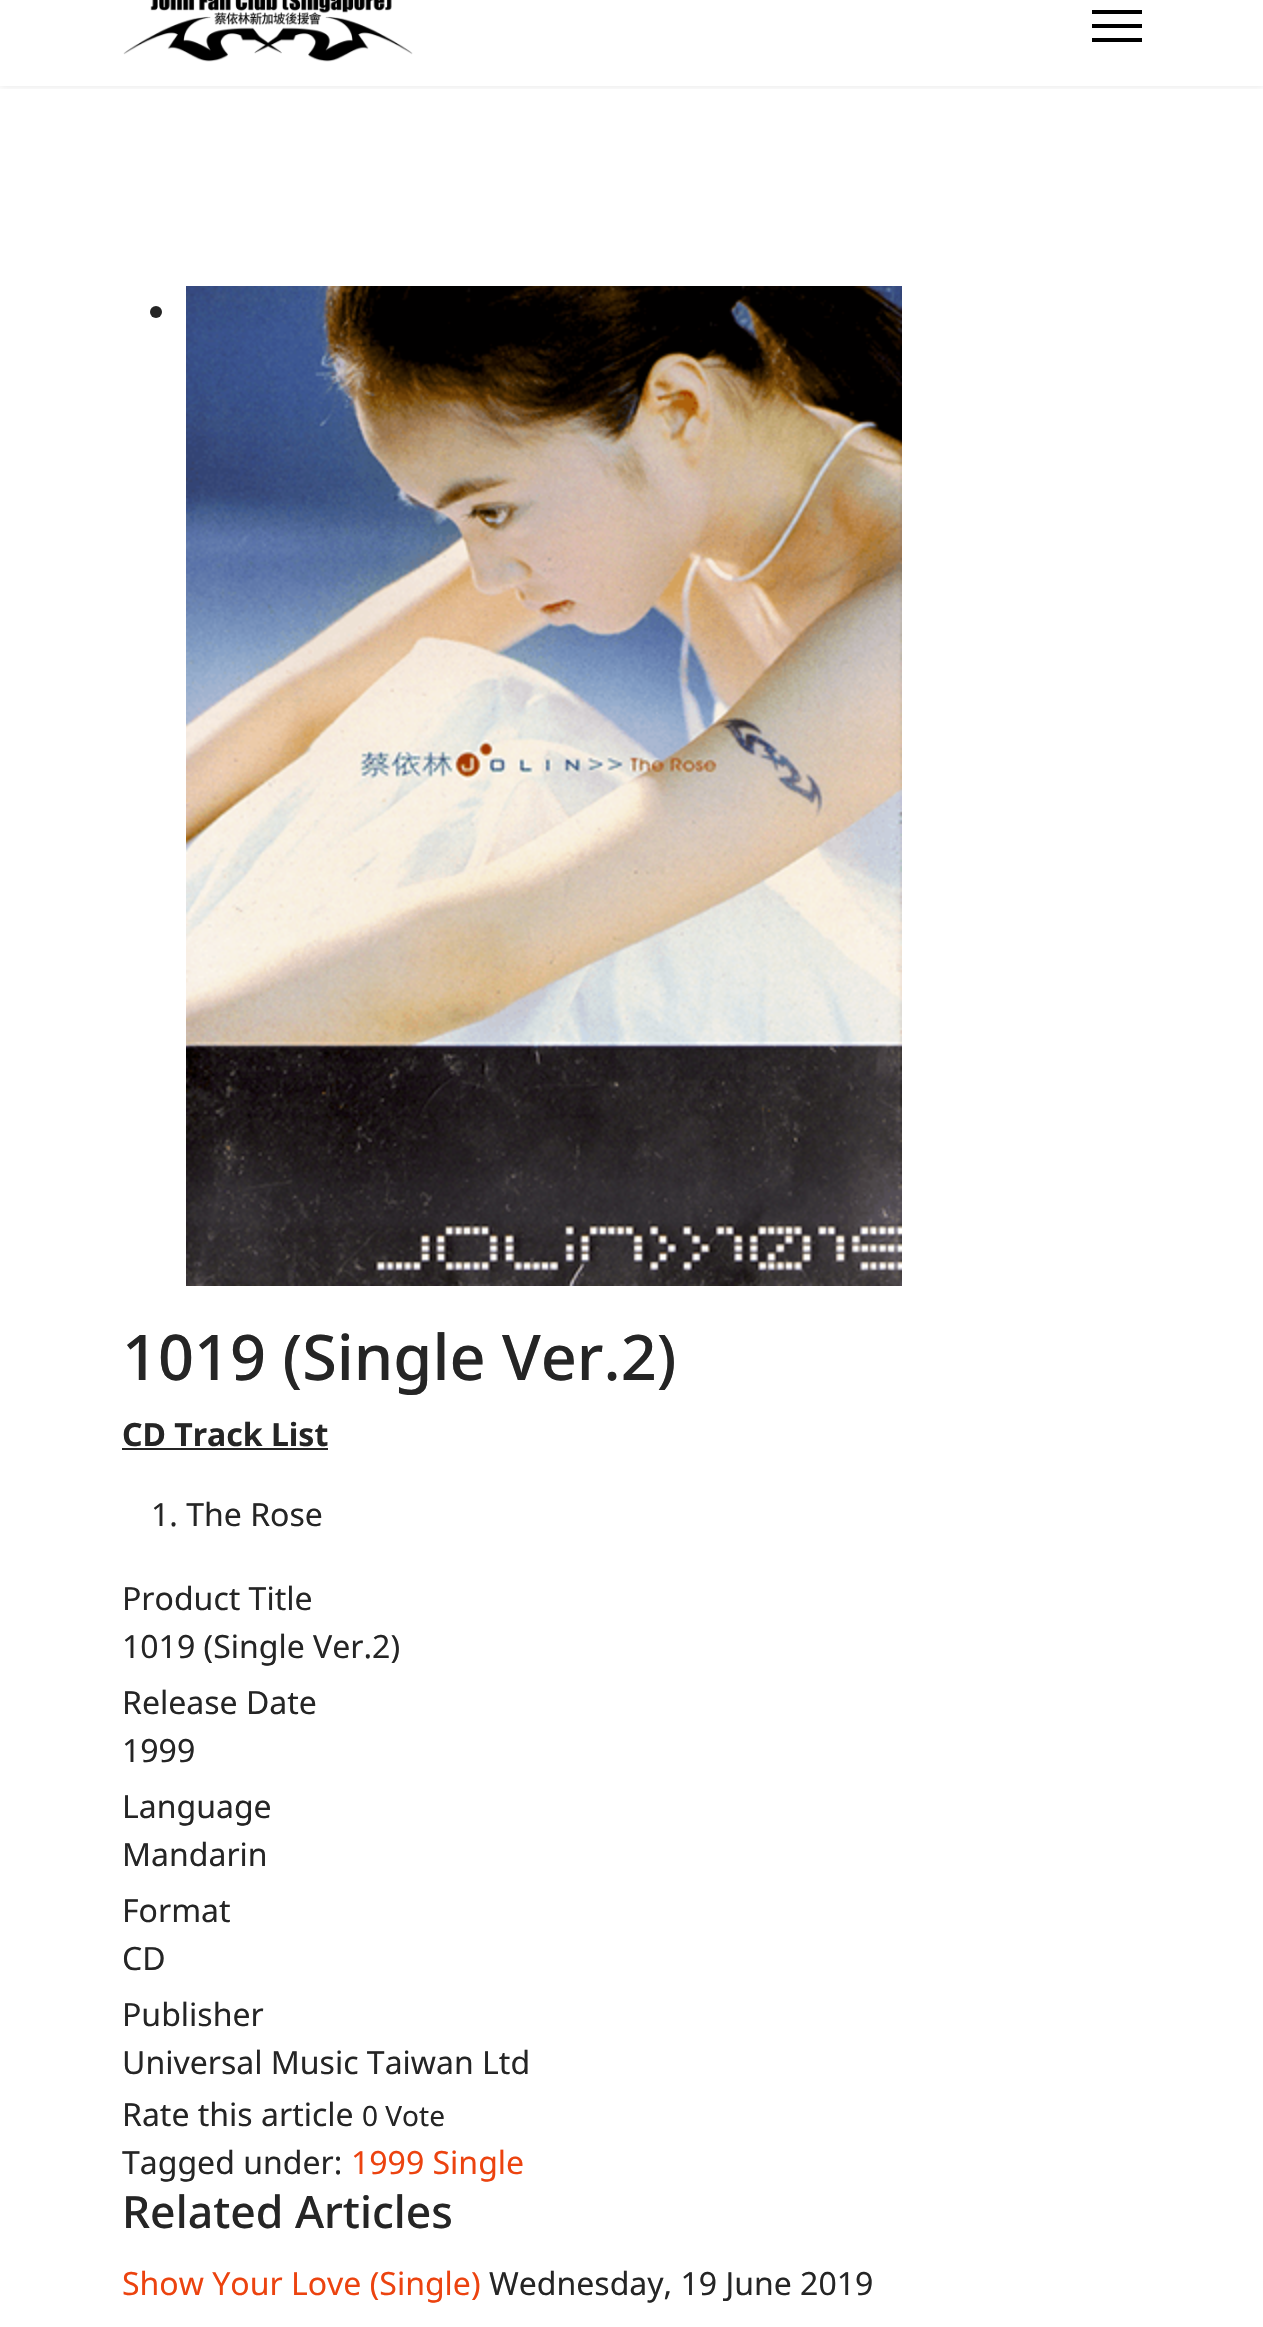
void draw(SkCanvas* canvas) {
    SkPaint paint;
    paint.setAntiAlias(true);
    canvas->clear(0xFFFFFFFF);
    canvas->save();
    canvas->clipRect(SkRect::MakeXYWH(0, 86, 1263, 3));
    paint.setColor(0x1A000000);
    paint.setMaskFilter(SkMaskFilter::MakeBlur(kNormal_SkBlurStyle, 4));
    canvas->drawRect(SkRect::MakeXYWH(0, -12, 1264, 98), paint);
    paint.setMaskFilter(nullptr);
    canvas->restore();
    canvas->drawImageRect(SkImages::DeferredFromEncodedData(SkData::MakeFromFileName("img1.png")), SkRect::MakeXYWH(123, 0, 290, 62), SkSamplingOptions());
    paint.setColor(0xFF000000);
    canvas->drawRect(SkRect::MakeXYWH(1092, 10, 50, 4), paint);
    canvas->drawRect(SkRect::MakeXYWH(1092, 24, 50, 4), paint);
    canvas->drawRect(SkRect::MakeXYWH(1092, 38, 50, 4), paint);
    paint.setColor(0xFF252525);
    canvas->drawCircle(156, 312, 6, paint);
    canvas->drawImageRect(SkImages::DeferredFromEncodedData(SkData::MakeFromFileName("img2.png")), SkRect::MakeXYWH(186, 286, 716, 1000), SkSamplingOptions());
    SkFont font1(fontMgr->matchFamilyStyle("Noto Sans", SkFontStyle(500, SkFontStyle::kNormal_Width, SkFontStyle::kUpright_Slant)), 63);
    font1.setSubpixel(true);
    canvas->drawString("1019 (Single Ver.2)", 122, 1380, font1, paint);
    SkFont font2(fontMgr->matchFamilyStyle("Noto Sans", SkFontStyle::Bold()), 32);
    font2.setSubpixel(true);
    canvas->drawString("CD Track List", 122, 1446, font2, paint);
    canvas->drawRect(SkRect::MakeXYWH(122, 1448, 206, 2), paint);
    SkFont font3(fontMgr->matchFamilyStyle("Noto Sans", SkFontStyle::Normal()), 32);
    font3.setSubpixel(true);
    canvas->drawString("1. The Rose", 151, 1526, font3, paint);
    canvas->drawString("Product Title", 122, 1610, font3, paint);
    canvas->drawString("1019 (Single Ver.2)", 122, 1658, font3, paint);
    canvas->drawString("Release Date", 122, 1714, font3, paint);
    canvas->drawString("1999", 122, 1762, font3, paint);
    canvas->drawString("Language", 122, 1818, font3, paint);
    canvas->drawString("Mandarin", 122, 1866, font3, paint);
    canvas->drawString("Format", 122, 1922, font3, paint);
    canvas->drawString("CD", 122, 1970, font3, paint);
    canvas->drawString("Publisher", 122, 2026, font3, paint);
    canvas->drawString("Universal Music Taiwan Ltd", 122, 2074, font3, paint);
    canvas->drawString("Rate this article", 122, 2126, font3, paint);
    SkFont font4(fontMgr->matchFamilyStyle("Noto Sans", SkFontStyle::Normal()), 28);
    font4.setSubpixel(true);
    canvas->drawString("0 Vote", 362, 2126, font4, paint);
    canvas->drawString("Tagged under:", 122, 2174, font3, paint);
    paint.setColor(0xFFEC430F);
    canvas->drawString("1999 Single", 351, 2174, font3, paint);
    SkFont font5(fontMgr->matchFamilyStyle("Noto Sans", SkFontStyle(500, SkFontStyle::kNormal_Width, SkFontStyle::kUpright_Slant)), 44.5f);
    font5.setSubpixel(true);
    paint.setColor(0xFF252525);
    canvas->drawString("Related Articles", 122, 2228, font5, paint);
    paint.setColor(0xFFEC430F);
    canvas->drawString("Show Your Love (Single)", 122, 2295, font3, paint);
    paint.setColor(0xFF252525);
    canvas->drawString("Wednesday, 19 June 2019", 489, 2295, font3, paint);
}
